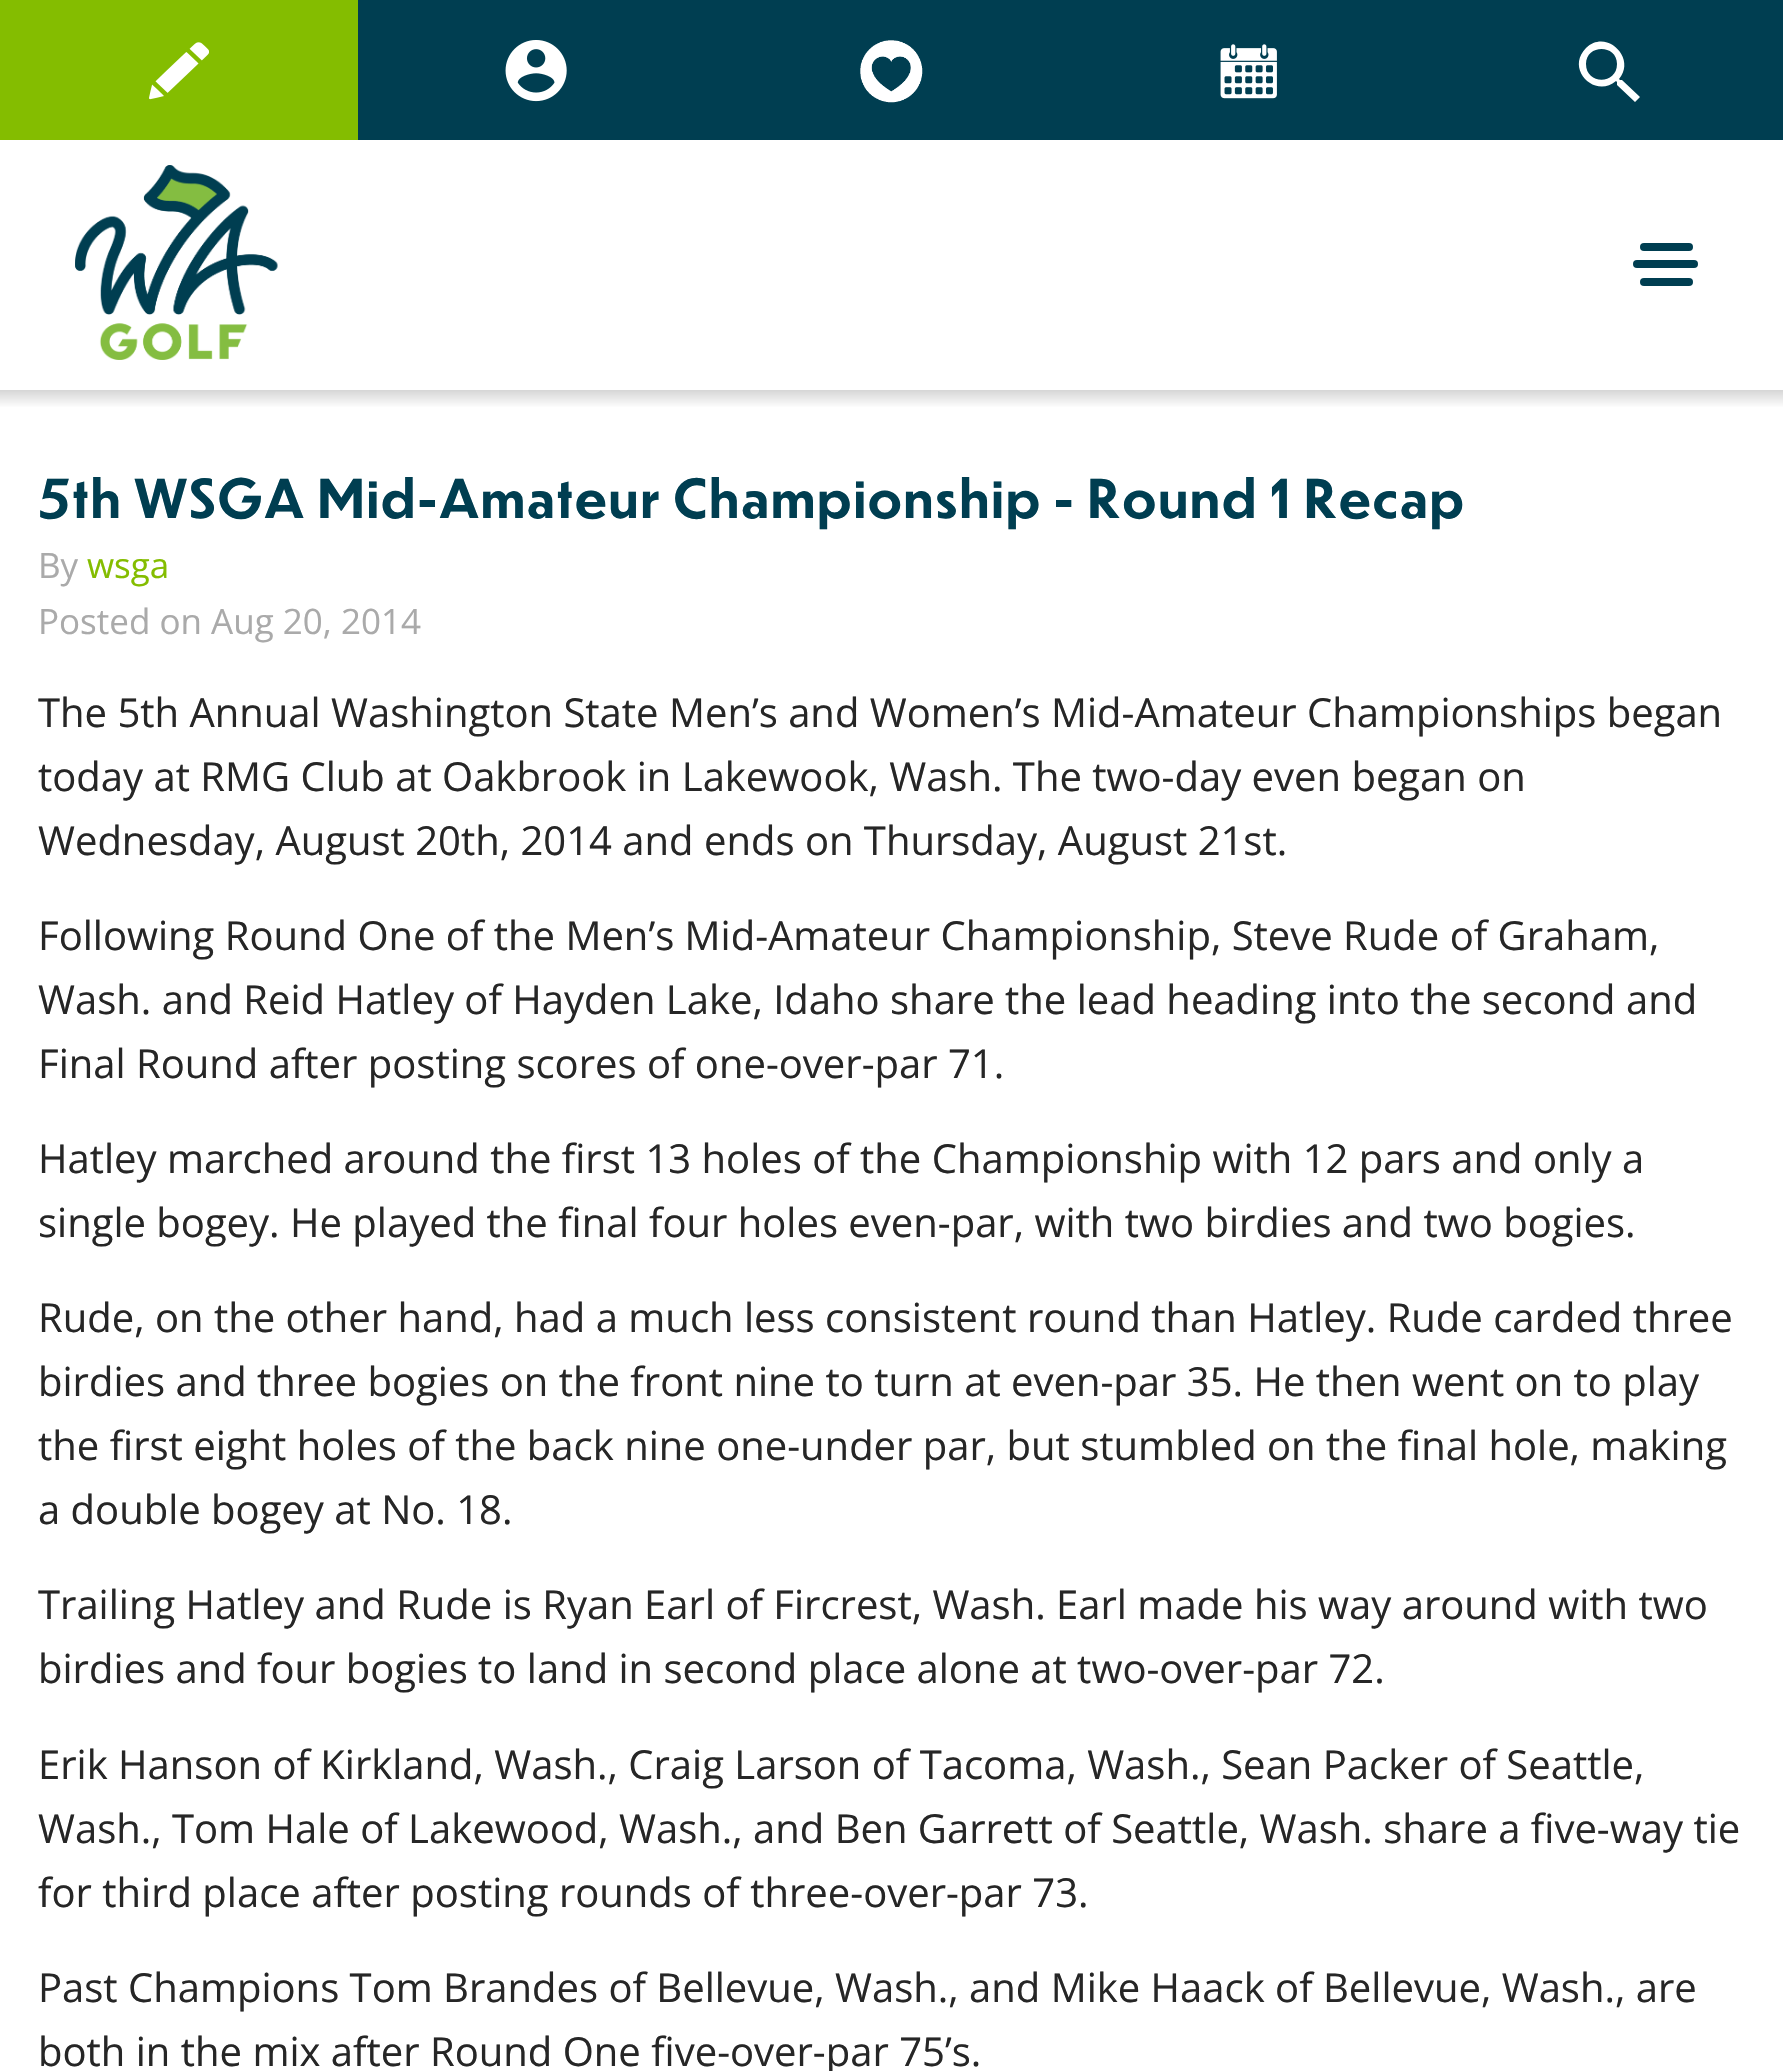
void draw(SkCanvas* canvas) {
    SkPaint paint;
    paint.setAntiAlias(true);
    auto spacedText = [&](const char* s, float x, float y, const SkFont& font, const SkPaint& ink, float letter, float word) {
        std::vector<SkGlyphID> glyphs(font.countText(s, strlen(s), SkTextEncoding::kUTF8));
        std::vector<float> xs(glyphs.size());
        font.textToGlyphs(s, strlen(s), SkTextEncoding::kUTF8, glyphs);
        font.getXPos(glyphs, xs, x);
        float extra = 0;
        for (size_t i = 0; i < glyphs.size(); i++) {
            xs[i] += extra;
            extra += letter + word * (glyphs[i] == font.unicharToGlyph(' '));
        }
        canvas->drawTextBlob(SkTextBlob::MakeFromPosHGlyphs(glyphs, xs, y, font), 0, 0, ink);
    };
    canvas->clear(0xFFFFFFFF);
    paint.setColor(0xFF003E51);
    canvas->drawRect(SkRect::MakeXYWH(358, 0, 1425, 140), paint);
    paint.setColor(0xFF84BD00);
    canvas->drawRect(SkRect::MakeXYWH(0, 0, 358, 140), paint);
    canvas->drawImageRect(SkImages::DeferredFromEncodedData(SkData::MakeFromFileName("img1.png")), SkRect::MakeXYWH(149, 42, 60, 58), SkSamplingOptions());
    canvas->drawImageRect(SkImages::DeferredFromEncodedData(SkData::MakeFromFileName("img2.png")), SkRect::MakeXYWH(505, 40, 62, 62), SkSamplingOptions());
    canvas->drawImageRect(SkImages::DeferredFromEncodedData(SkData::MakeFromFileName("img3.png")), SkRect::MakeXYWH(860, 40, 63, 63), SkSamplingOptions());
    canvas->drawImageRect(SkImages::DeferredFromEncodedData(SkData::MakeFromFileName("img4.png")), SkRect::MakeXYWH(1220, 44, 57, 55), SkSamplingOptions());
    paint.setColor(0xFFFFFFFF);
    canvas->drawPath(SkPathBuilder(SkPathFillType::kEvenOdd).moveTo(1620, 80).lineTo(1622, 80).lineTo(1640, 97).lineTo(1635, 102).lineTo(1617, 85).lineTo(1617, 82).lineTo(1616, 81).cubicTo(1595, 99, 1565, 69, 1586, 48).cubicTo(1606, 28, 1637, 58, 1619, 79).close().moveTo(1586, 64).cubicTo(1586, 85, 1617, 85, 1617, 64).cubicTo(1617, 44, 1586, 44, 1586, 64).close().detach(), paint);
    canvas->drawImageRect(SkImages::DeferredFromEncodedData(SkData::MakeFromFileName("img5.png")), SkRect::MakeXYWH(75, 165, 203, 195), SkSamplingOptions());
    paint.setColor(0xFF003E51);
    canvas->drawRoundRect(SkRect::MakeXYWH(1633, 260, 65, 8), 4, 4, paint);
    canvas->drawRoundRect(SkRect::MakeXYWH(1640, 243, 53, 8), 4, 4, paint);
    canvas->drawRoundRect(SkRect::MakeXYWH(1640, 278, 53, 8), 4, 4, paint);
    {
        const SkColor colors[] = {0xFFD6D6D6, 0xFFFFFFFF};
        const float stops[] = {0, 1};
        const SkPoint ends[] = {{893, 390}, {893, 408}};
        paint.setShader(SkGradientShader::MakeLinear(ends, colors, stops, 2, SkTileMode::kClamp));
        paint.setAlpha(255);
    }
    canvas->drawRect(SkRect::MakeXYWH(0, 390, 1783, 17), paint);
    SkFont font1(fontMgr->matchFamilyStyle("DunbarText", SkFontStyle::Bold()), 52.5f);
    font1.setSubpixel(true);
    paint.setShader(nullptr);
    paint.setColor(0xFF003E51);
    spacedText("5th WSGA Mid-Amateur Championship - Round 1 Recap", 38, 518, font1, paint, 1.05f, 0);
    SkFont font2(fontMgr->matchFamilyStyle("Open Sans", SkFontStyle::Normal()), 35);
    font2.setSubpixel(true);
    paint.setColor(0xFFAAAAAA);
    canvas->drawString("By", 38, 578, font2, paint);
    paint.setColor(0xFF84BD00);
    canvas->drawString("wsga", 87, 578, font2, paint);
    paint.setColor(0xFFAAAAAA);
    canvas->drawString("Posted on Aug 20, 2014", 38, 634, font2, paint);
    SkFont font3(fontMgr->matchFamilyStyle("Open Sans", SkFontStyle::Normal()), 40);
    font3.setSubpixel(true);
    paint.setColor(0xFF262626);
    canvas->drawString("The 5th Annual Washington State Men’s and Women’s Mid-Amateur Championships began", 38, 727, font3, paint);
    canvas->drawString("today at RMG Club at Oakbrook in Lakewook, Wash. The two-day even began on", 38, 791, font3, paint);
    canvas->drawString("Wednesday, August 20th, 2014 and ends on Thursday, August 21st.", 38, 855, font3, paint);
    canvas->drawString("Following Round One of the Men’s Mid-Amateur Championship, Steve Rude of Graham,", 38, 950, font3, paint);
    canvas->drawString("Wash. and Reid Hatley of Hayden Lake, Idaho share the lead heading into the second and", 38, 1014, font3, paint);
    canvas->drawString("Final Round after posting scores of one-over-par 71.", 38, 1078, font3, paint);
    canvas->drawString("Hatley marched around the first 13 holes of the Championship with 12 pars and only a", 38, 1173, font3, paint);
    canvas->drawString("single bogey. He played the final four holes even-par, with two birdies and two bogies.", 38, 1237, font3, paint);
    canvas->drawString("Rude, on the other hand, had a much less consistent round than Hatley. Rude carded three", 38, 1332, font3, paint);
    canvas->drawString("birdies and three bogies on the front nine to turn at even-par 35. He then went on to play", 38, 1396, font3, paint);
    canvas->drawString("the first eight holes of the back nine one-under par, but stumbled on the final hole, making", 38, 1460, font3, paint);
    canvas->drawString("a double bogey at No. 18.", 38, 1524, font3, paint);
    canvas->drawString("Trailing Hatley and Rude is Ryan Earl of Fircrest, Wash. Earl made his way around with two", 38, 1619, font3, paint);
    canvas->drawString("birdies and four bogies to land in second place alone at two-over-par 72.", 38, 1683, font3, paint);
    canvas->drawString("Erik Hanson of Kirkland, Wash., Craig Larson of Tacoma, Wash., Sean Packer of Seattle,", 38, 1779, font3, paint);
    canvas->drawString("Wash., Tom Hale of Lakewood, Wash., and Ben Garrett of Seattle, Wash. share a five-way tie", 38, 1843, font3, paint);
    canvas->drawString("for third place after posting rounds of three-over-par 73.", 38, 1907, font3, paint);
    canvas->drawString("Past Champions Tom Brandes of Bellevue, Wash., and Mike Haack of Bellevue, Wash., are", 38, 2002, font3, paint);
    canvas->drawString("both in the mix after Round One five-over-par 75’s.", 38, 2066, font3, paint);
}
